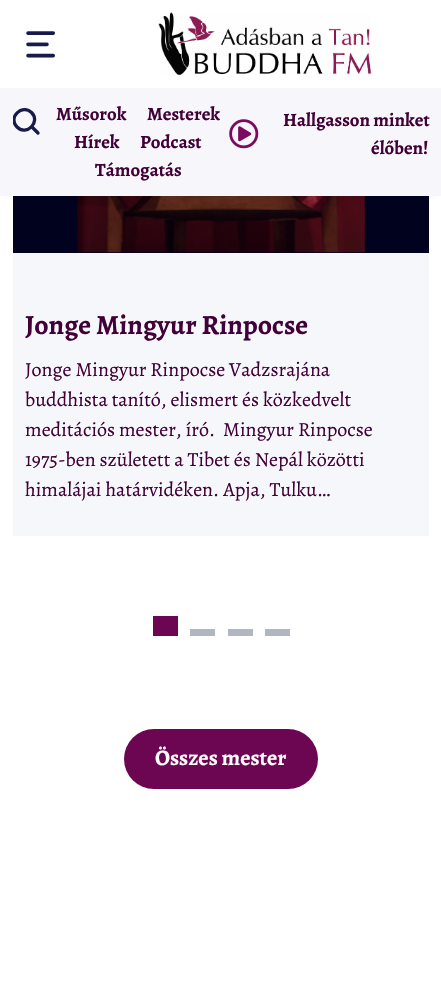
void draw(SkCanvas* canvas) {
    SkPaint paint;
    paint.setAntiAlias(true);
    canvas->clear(0xFFFFFFFF);
    paint.setColor(0xFF00021E);
    canvas->drawRect(SkRect::MakeXYWH(13, 196, 416, 57), paint);
    canvas->drawImageRect(SkImages::DeferredFromEncodedData(SkData::MakeFromFileName("img4.png")), SkRect::MakeXYWH(77, 196, 288, 57), SkSamplingOptions());
    paint.setColor(0xCC000000);
    paint.setMaskFilter(SkMaskFilter::MakeBlur(kNormal_SkBlurStyle, 6));
    canvas->drawRect(SkRect::MakeXYWH(10, 10, 421, 176), paint);
    paint.setMaskFilter(nullptr);
    paint.setColor(0xFFFFFFFF);
    canvas->drawRect(SkRect::MakeXYWH(0, 0, 441, 88), paint);
    canvas->drawImageRect(SkImages::DeferredFromEncodedData(SkData::MakeFromFileName("img1.png")), SkRect::MakeXYWH(26, 31, 29, 27), SkSamplingOptions());
    canvas->drawImageRect(SkImages::DeferredFromEncodedData(SkData::MakeFromFileName("img2.png")), SkRect::MakeXYWH(158, 12, 214, 63), SkSamplingOptions());
    paint.setColor(0xFFF6F6FB);
    canvas->drawRect(SkRect::MakeXYWH(0, 88, 441, 108), paint);
    canvas->save();
    canvas->clipRect(SkRect::MakeXYWH(13, 108, 28, 28));
    paint.setStyle(SkPaint::kStroke_Style);
    paint.setStrokeWidth(3.3f);
    paint.setColor(0xFF171A4A);
    canvas->drawPath(SkPathBuilder().moveTo(31.5f, 112.5f).cubicTo(41, 122, 26.5f, 136.5f, 17, 127).cubicTo(7.5f, 117.5f, 22, 103.5f, 31.5f, 112.5f).close().detach(), paint);
    canvas->restore();
    paint.setStrokeCap(SkPaint::kRound_Cap);
    canvas->drawPath(SkPathBuilder().moveTo(32, 127).lineTo(38, 133).detach(), paint);
    SkFont font1(fontMgr->matchFamilyStyle("Alegreya", SkFontStyle::Bold()), 18.75f);
    font1.setSubpixel(true);
    paint.setStyle(SkPaint::kFill_Style);
    paint.setColor(0xFF410037);
    canvas->drawString("Műsorok", 56, 120, font1, paint);
    canvas->drawString("Mesterek", 147, 120, font1, paint);
    canvas->drawString("Hírek", 74, 148, font1, paint);
    canvas->drawString("Podcast", 140, 148, font1, paint);
    canvas->drawString("Támogatás", 95, 176, font1, paint);
    canvas->drawImageRect(SkImages::DeferredFromEncodedData(SkData::MakeFromFileName("img3.png")), SkRect::MakeXYWH(229, 119, 30, 30), SkSamplingOptions());
    canvas->drawString("Hallgasson minket", 283, 126, font1, paint);
    canvas->drawString("élőben!", 371, 154, font1, paint);
    paint.setColor(0xFFF5F7FA);
    canvas->drawRect(SkRect::MakeXYWH(13, 253, 416, 283), paint);
    SkFont font2(fontMgr->matchFamilyStyle("Alegreya", SkFontStyle::Bold()), 27.75f);
    font2.setSubpixel(true);
    paint.setColor(0xFF410037);
    canvas->drawString("Jonge Mingyur Rinpocse", 25, 334, font2, paint);
    SkFont font3(fontMgr->matchFamilyStyle("Alegreya", SkFontStyle::Normal()), 20);
    font3.setSubpixel(true);
    canvas->drawString("Jonge Mingyur Rinpocse Vadzsrajána", 25, 376, font3, paint);
    canvas->drawString("buddhista tanító, elismert és közkedvelt", 25, 406, font3, paint);
    canvas->drawString("meditációs mester, író.  Mingyur Rinpocse", 25, 436, font3, paint);
    canvas->drawString("1975-ben született a Tibet és Nepál közötti", 25, 466, font3, paint);
    canvas->drawString("himalájai határvidéken. Apja, Tulku…", 25, 496, font3, paint);
    paint.setColor(0xFF6C0652);
    canvas->drawRect(SkRect::MakeXYWH(153, 616, 25, 20), paint);
    paint.setColor(0xFFB1B7C0);
    canvas->drawRect(SkRect::MakeXYWH(190, 629, 25, 7), paint);
    canvas->drawRect(SkRect::MakeXYWH(228, 629, 25, 7), paint);
    canvas->drawRect(SkRect::MakeXYWH(265, 629, 25, 7), paint);
    paint.setColor(0xFF6C0652);
    canvas->drawRoundRect(SkRect::MakeXYWH(124, 729, 194, 60), 30, 30, paint);
    SkFont font4(fontMgr->matchFamilyStyle("Alegreya", SkFontStyle::Bold()), 22.25f);
    font4.setSubpixel(true);
    paint.setColor(0xFFFFFFFF);
    canvas->drawString("Összes mester", 155, 765, font4, paint);
}
